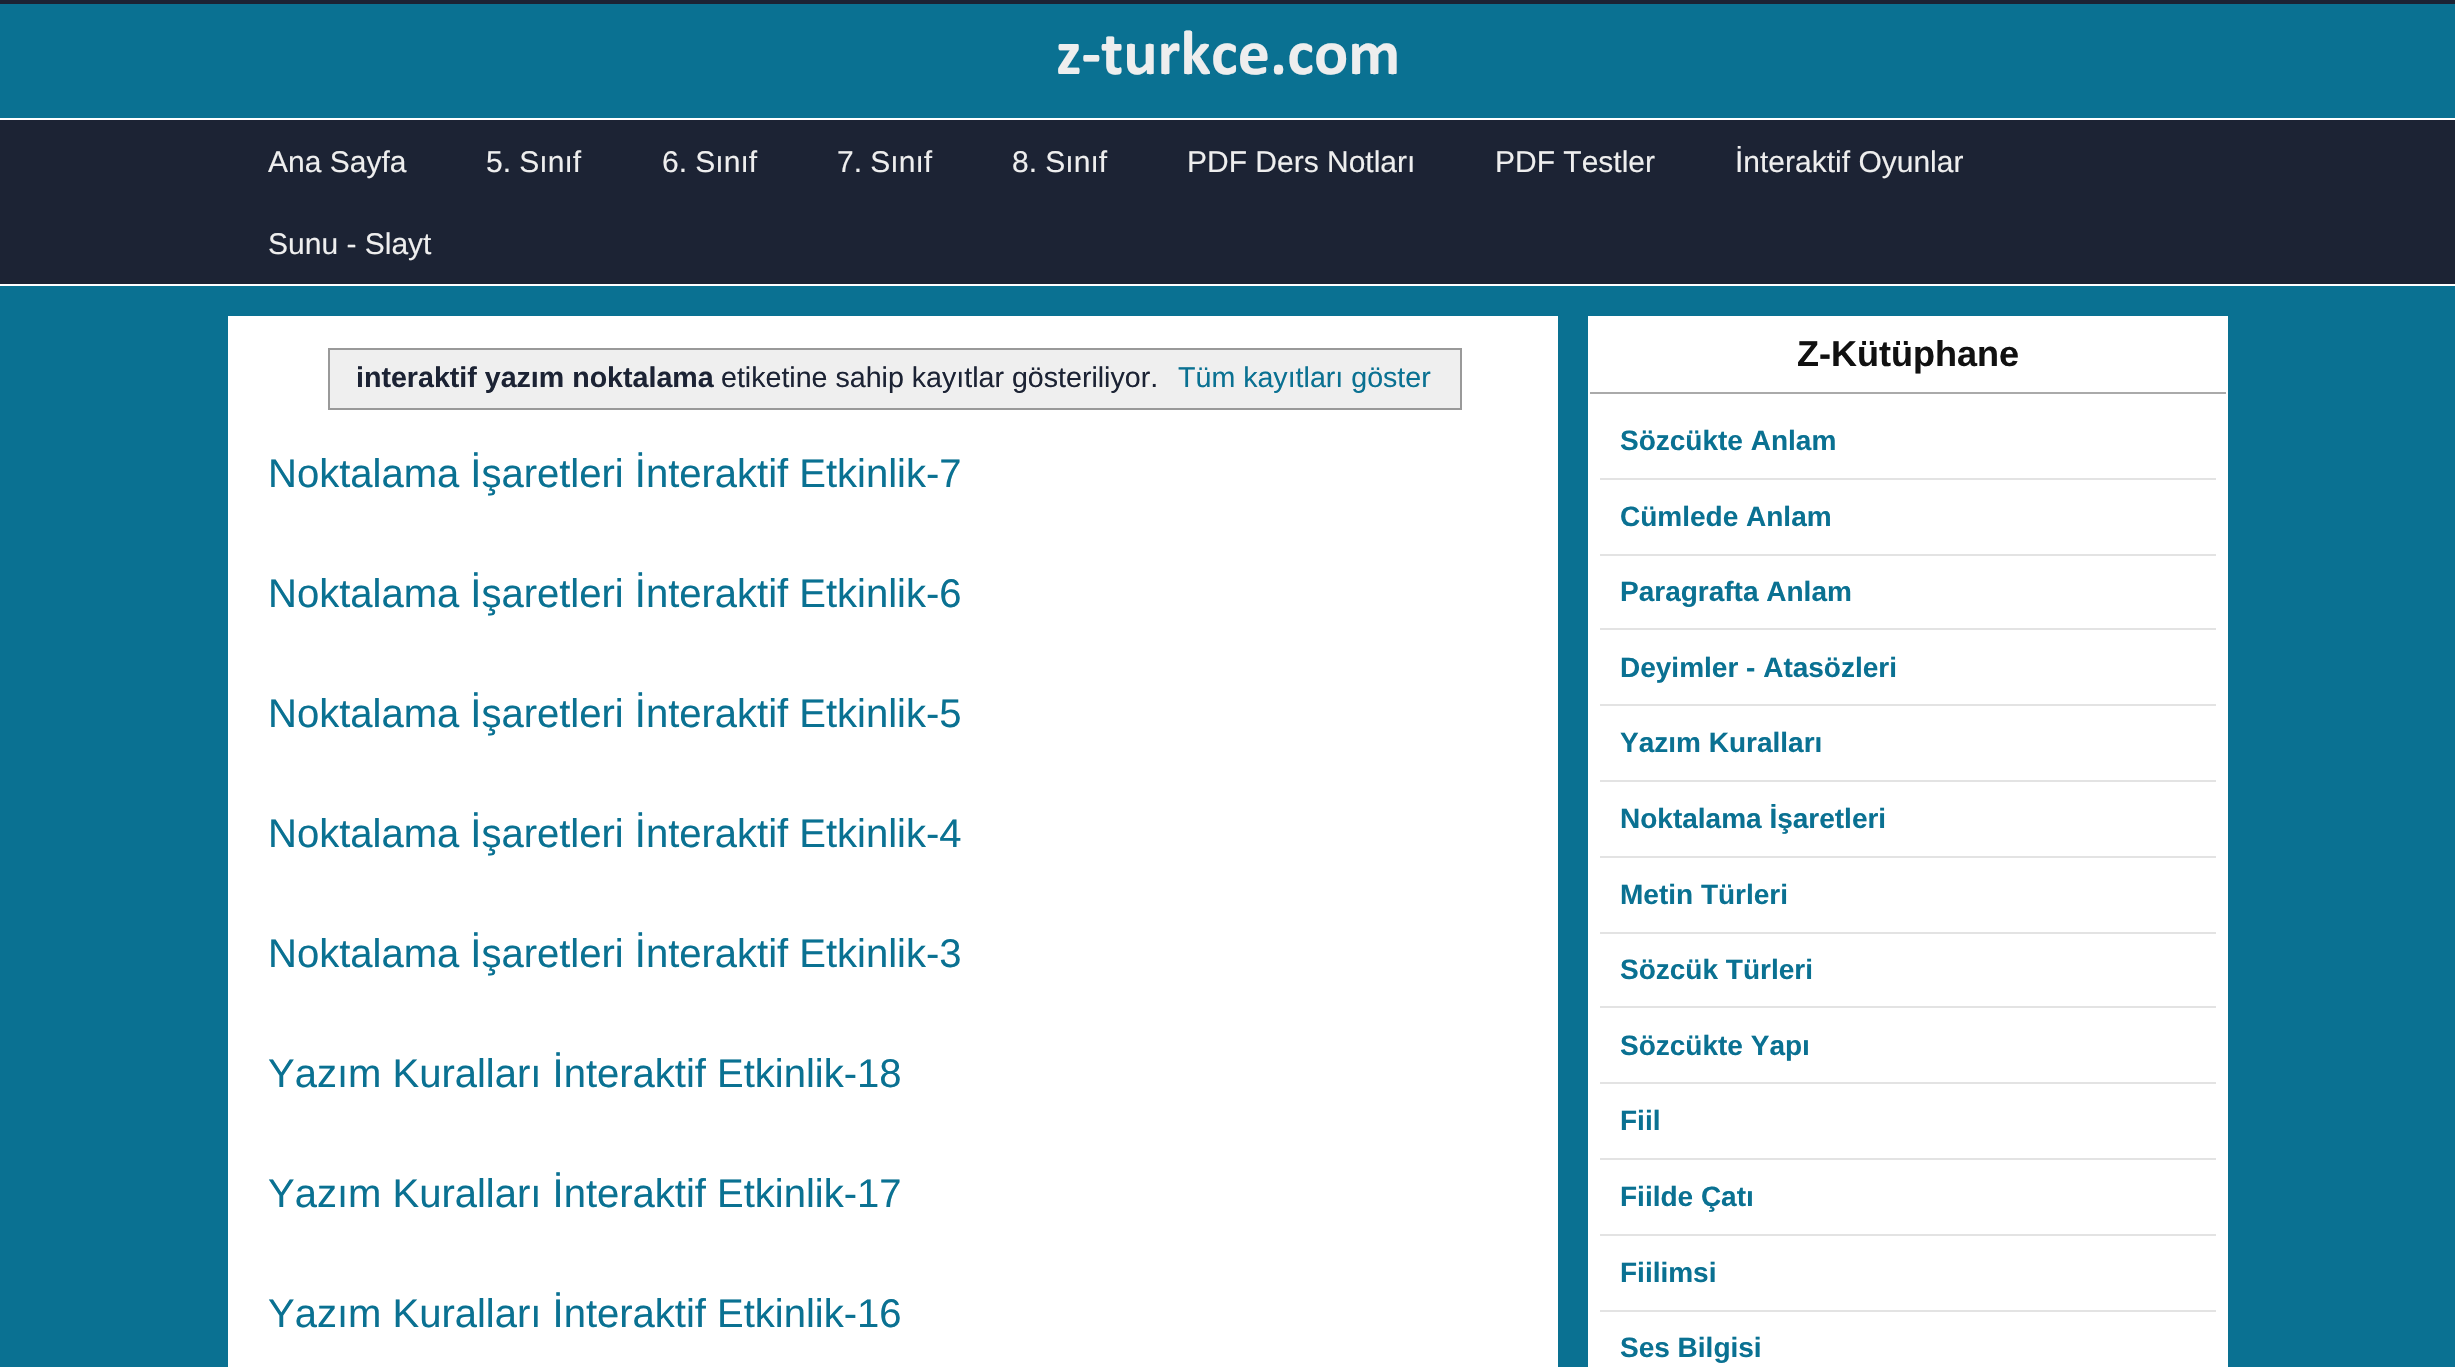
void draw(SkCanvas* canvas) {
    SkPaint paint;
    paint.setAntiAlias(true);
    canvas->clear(0xFF1C2334);
    paint.setColor(0xFF0A7192);
    canvas->drawRect(SkRect::MakeXYWH(0, 4, 2455, 1363), paint);
    SkFont font1(fontMgr->matchFamilyStyle("Calibri", SkFontStyle::Bold()), 64);
    font1.setSubpixel(true);
    paint.setColor(0xFFEEEEEE);
    canvas->drawString("z-turkce.com", 1056, 74, font1, paint);
    paint.setColor(0xFF1C2334);
    canvas->drawRect(SkRect::MakeXYWH(0, 120, 2455, 164), paint);
    paint.setColor(0xFFFFFFFF);
    canvas->drawRect(SkRect::MakeXYWH(0, 118, 2455, 2), paint);
    canvas->drawRect(SkRect::MakeXYWH(0, 284, 2455, 2), paint);
    SkFont font2(fontMgr->matchFamilyStyle("Liberation Sans", SkFontStyle::Normal()), 30);
    font2.setSubpixel(true);
    paint.setColor(0xFFEEEEEE);
    canvas->drawString("Ana Sayfa", 268, 172, font2, paint);
    canvas->drawString("5. Sınıf", 486, 172, font2, paint);
    canvas->drawString("6. Sınıf", 662, 172, font2, paint);
    canvas->drawString("7. Sınıf", 837, 172, font2, paint);
    canvas->drawString("8. Sınıf", 1012, 172, font2, paint);
    canvas->drawString("PDF Ders Notları", 1187, 172, font2, paint);
    canvas->drawString("PDF Testler", 1495, 172, font2, paint);
    canvas->drawString("İnteraktif Oyunlar", 1735, 172, font2, paint);
    canvas->drawString("Sunu - Slayt", 268, 254, font2, paint);
    paint.setColor(0xFFFFFFFF);
    canvas->drawRect(SkRect::MakeXYWH(228, 316, 1330, 1051), paint);
    paint.setStyle(SkPaint::kStroke_Style);
    paint.setStrokeWidth(2);
    paint.setColor(0xFF999999);
    canvas->drawRect(SkRect::MakeXYWH(329, 349, 1132, 60), paint);
    paint.setStyle(SkPaint::kFill_Style);
    paint.setColor(0xFFEFEFEF);
    canvas->drawRect(SkRect::MakeXYWH(330, 350, 1130, 58), paint);
    SkFont font3(fontMgr->matchFamilyStyle("Liberation Sans", SkFontStyle::Bold()), 28.6f);
    font3.setSubpixel(true);
    paint.setColor(0xFF1C2334);
    canvas->drawString("interaktif yazım noktalama", 356, 387, font3, paint);
    SkFont font4(fontMgr->matchFamilyStyle("Liberation Sans", SkFontStyle::Normal()), 28.6f);
    font4.setSubpixel(true);
    canvas->drawString("etiketine sahip kayıtlar gösteriliyor.", 721, 387, font4, paint);
    paint.setColor(0xFF0A7192);
    canvas->drawString("Tüm kayıtları göster", 1178, 387, font4, paint);
    SkFont font5(fontMgr->matchFamilyStyle("Liberation Sans", SkFontStyle::Normal()), 40);
    font5.setSubpixel(true);
    canvas->drawString("Noktalama İşaretleri İnteraktif Etkinlik-7", 268, 487, font5, paint);
    canvas->drawString("Noktalama İşaretleri İnteraktif Etkinlik-6", 268, 607, font5, paint);
    canvas->drawString("Noktalama İşaretleri İnteraktif Etkinlik-5", 268, 727, font5, paint);
    canvas->drawString("Noktalama İşaretleri İnteraktif Etkinlik-4", 268, 847, font5, paint);
    canvas->drawString("Noktalama İşaretleri İnteraktif Etkinlik-3", 268, 967, font5, paint);
    canvas->drawString("Yazım Kuralları İnteraktif Etkinlik-18", 268, 1087, font5, paint);
    canvas->drawString("Yazım Kuralları İnteraktif Etkinlik-17", 268, 1207, font5, paint);
    canvas->drawString("Yazım Kuralları İnteraktif Etkinlik-16", 268, 1327, font5, paint);
    paint.setColor(0xFFFFFFFF);
    canvas->drawRect(SkRect::MakeXYWH(1588, 316, 640, 1051), paint);
    paint.setColor(0xFFAAAAAA);
    canvas->drawRect(SkRect::MakeXYWH(1590, 392, 636, 2), paint);
    SkFont font6(fontMgr->matchFamilyStyle("Liberation Sans", SkFontStyle::Bold()), 36);
    font6.setSubpixel(true);
    paint.setColor(0xFF111111);
    canvas->drawString("Z-Kütüphane", 1797, 366, font6, paint);
    paint.setColor(0xFFE3E3E3);
    canvas->drawRect(SkRect::MakeXYWH(1600, 478, 616, 2), paint);
    SkFont font7(fontMgr->matchFamilyStyle("Liberation Sans", SkFontStyle::Bold()), 28);
    font7.setSubpixel(true);
    paint.setColor(0xFF0A7192);
    canvas->drawString("Sözcükte Anlam", 1620, 450, font7, paint);
    paint.setColor(0xFFE3E3E3);
    canvas->drawRect(SkRect::MakeXYWH(1600, 554, 616, 2), paint);
    paint.setColor(0xFF0A7192);
    canvas->drawString("Cümlede Anlam", 1620, 526, font7, paint);
    paint.setColor(0xFFE3E3E3);
    canvas->drawRect(SkRect::MakeXYWH(1600, 628, 616, 2), paint);
    paint.setColor(0xFF0A7192);
    canvas->drawString("Paragrafta Anlam", 1620, 601, font7, paint);
    paint.setColor(0xFFE3E3E3);
    canvas->drawRect(SkRect::MakeXYWH(1600, 704, 616, 2), paint);
    paint.setColor(0xFF0A7192);
    canvas->drawString("Deyimler - Atasözleri", 1620, 677, font7, paint);
    paint.setColor(0xFFE3E3E3);
    canvas->drawRect(SkRect::MakeXYWH(1600, 780, 616, 2), paint);
    paint.setColor(0xFF0A7192);
    canvas->drawString("Yazım Kuralları", 1620, 752, font7, paint);
    paint.setColor(0xFFE3E3E3);
    canvas->drawRect(SkRect::MakeXYWH(1600, 856, 616, 2), paint);
    paint.setColor(0xFF0A7192);
    canvas->drawString("Noktalama İşaretleri", 1620, 828, font7, paint);
    paint.setColor(0xFFE3E3E3);
    canvas->drawRect(SkRect::MakeXYWH(1600, 932, 616, 2), paint);
    paint.setColor(0xFF0A7192);
    canvas->drawString("Metin Türleri", 1620, 904, font7, paint);
    paint.setColor(0xFFE3E3E3);
    canvas->drawRect(SkRect::MakeXYWH(1600, 1006, 616, 2), paint);
    paint.setColor(0xFF0A7192);
    canvas->drawString("Sözcük Türleri", 1620, 979, font7, paint);
    paint.setColor(0xFFE3E3E3);
    canvas->drawRect(SkRect::MakeXYWH(1600, 1082, 616, 2), paint);
    paint.setColor(0xFF0A7192);
    canvas->drawString("Sözcükte Yapı", 1620, 1055, font7, paint);
    paint.setColor(0xFFE3E3E3);
    canvas->drawRect(SkRect::MakeXYWH(1600, 1158, 616, 2), paint);
    paint.setColor(0xFF0A7192);
    canvas->drawString("Fiil", 1620, 1130, font7, paint);
    paint.setColor(0xFFE3E3E3);
    canvas->drawRect(SkRect::MakeXYWH(1600, 1234, 616, 2), paint);
    paint.setColor(0xFF0A7192);
    canvas->drawString("Fiilde Çatı", 1620, 1206, font7, paint);
    paint.setColor(0xFFE3E3E3);
    canvas->drawRect(SkRect::MakeXYWH(1600, 1310, 616, 2), paint);
    paint.setColor(0xFF0A7192);
    canvas->drawString("Fiilimsi", 1620, 1282, font7, paint);
    canvas->drawString("Ses Bilgisi", 1620, 1357, font7, paint);
}
